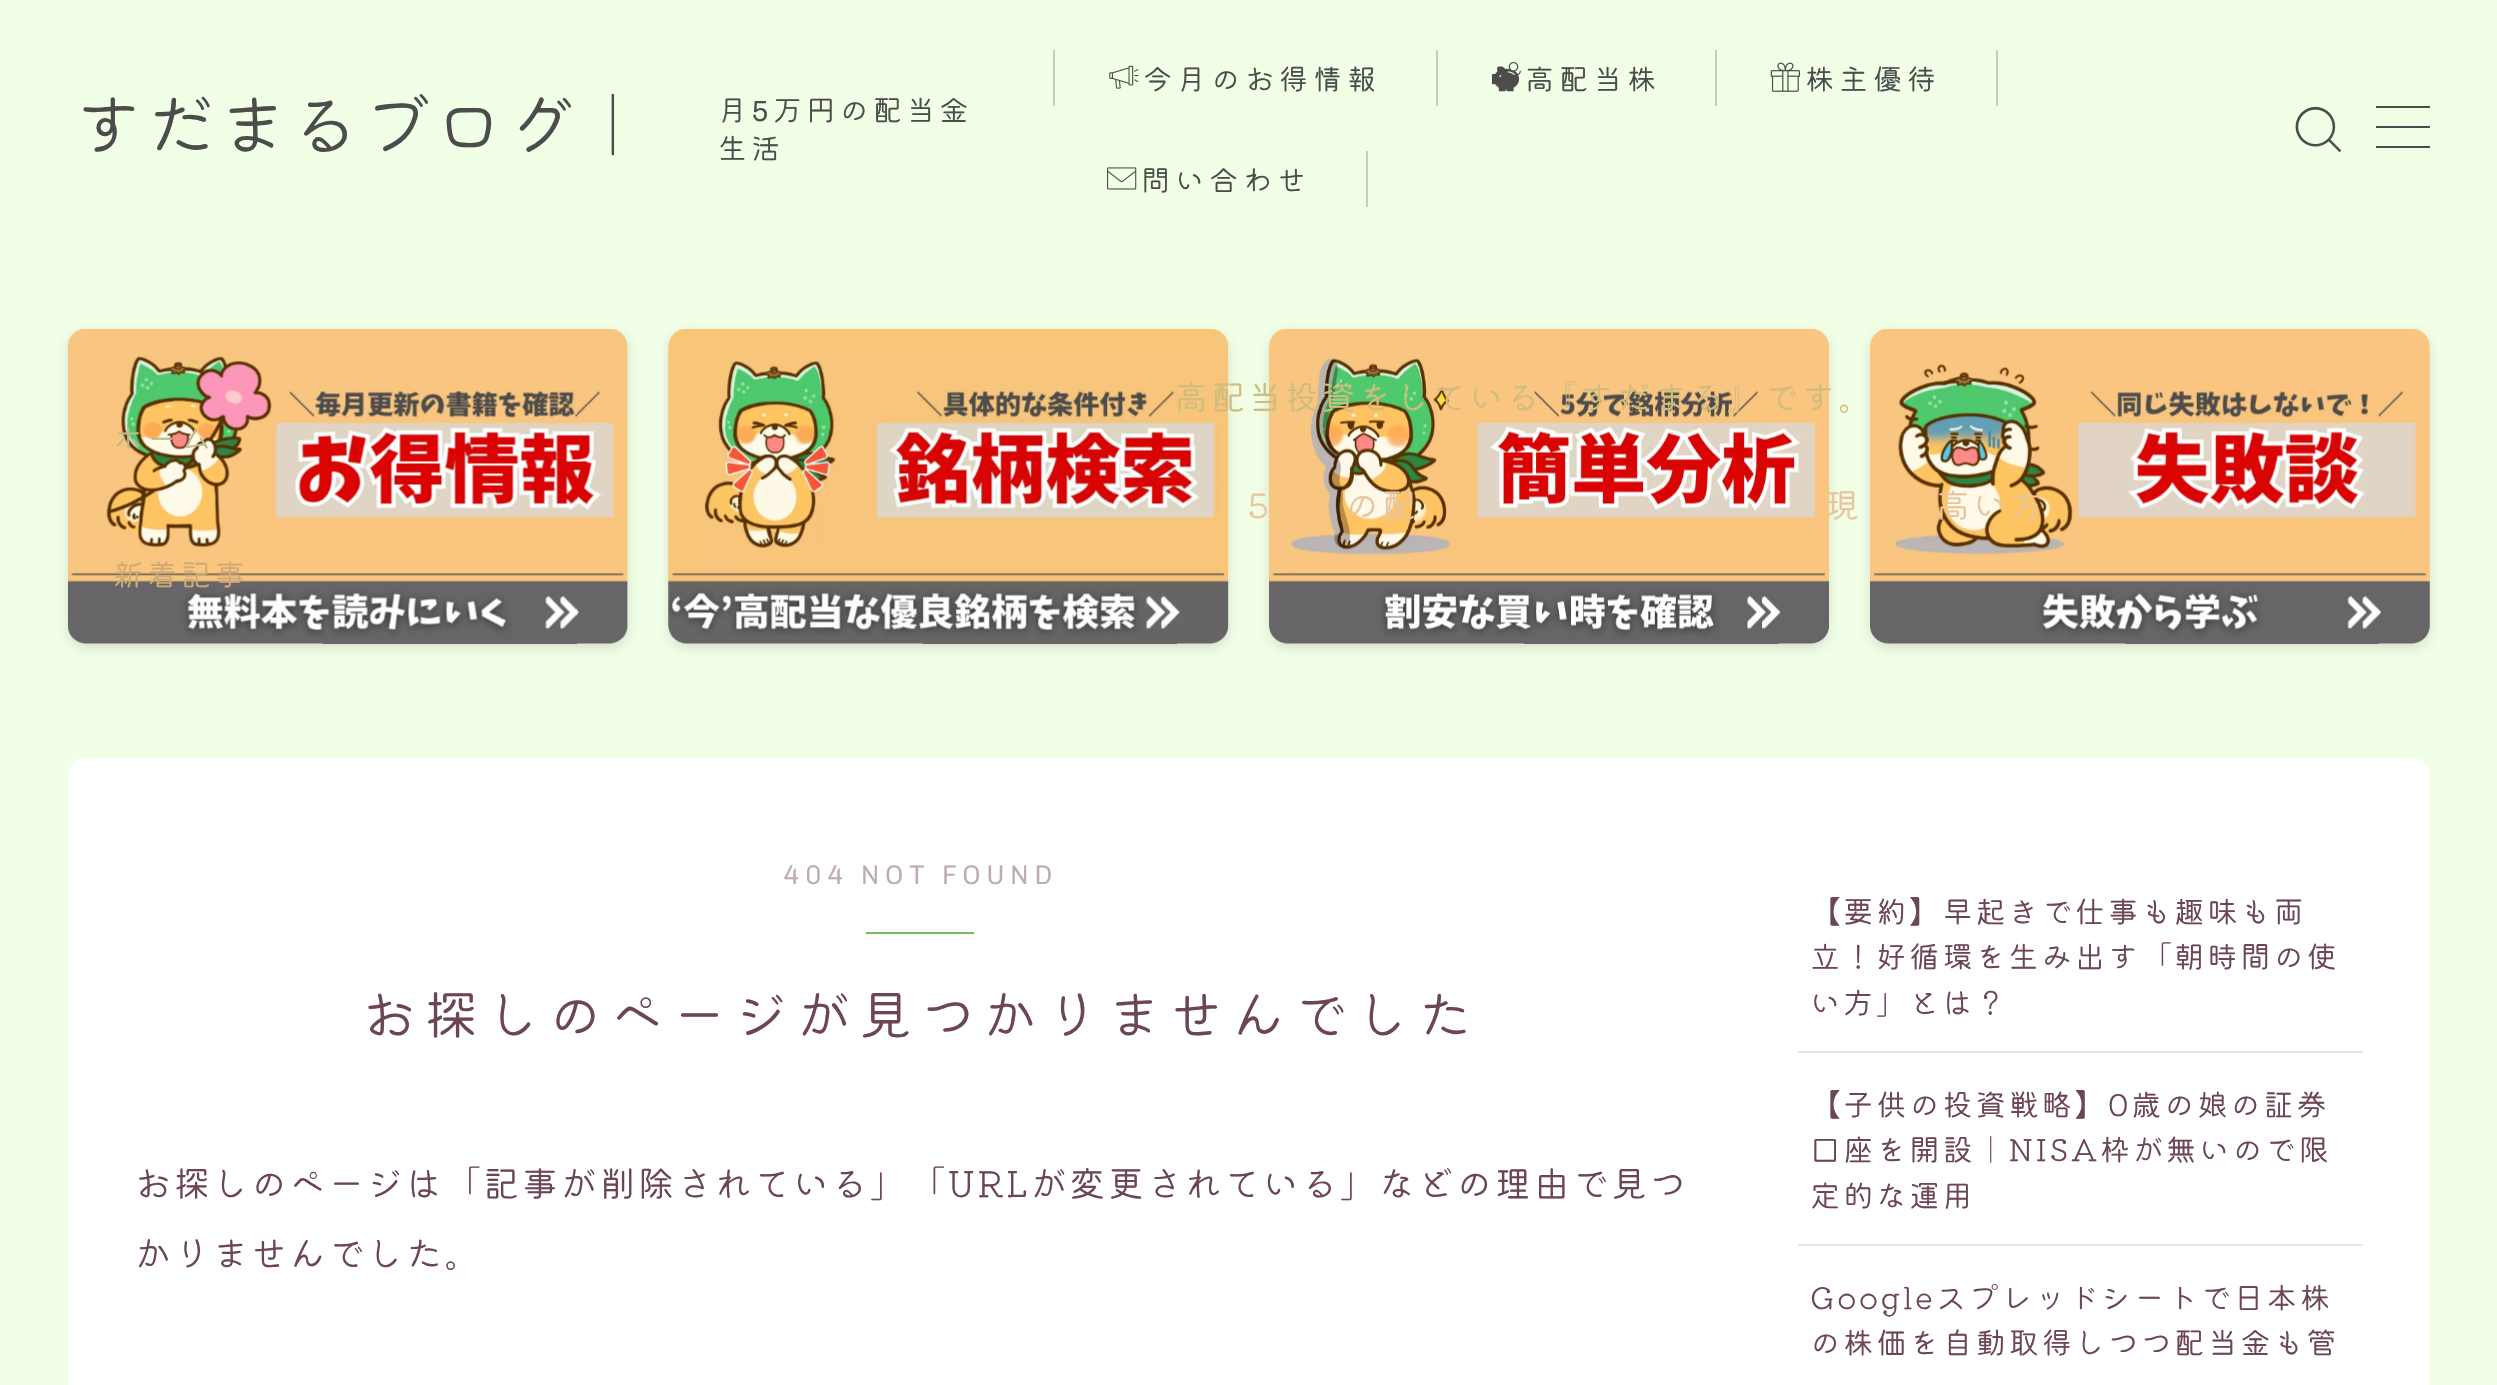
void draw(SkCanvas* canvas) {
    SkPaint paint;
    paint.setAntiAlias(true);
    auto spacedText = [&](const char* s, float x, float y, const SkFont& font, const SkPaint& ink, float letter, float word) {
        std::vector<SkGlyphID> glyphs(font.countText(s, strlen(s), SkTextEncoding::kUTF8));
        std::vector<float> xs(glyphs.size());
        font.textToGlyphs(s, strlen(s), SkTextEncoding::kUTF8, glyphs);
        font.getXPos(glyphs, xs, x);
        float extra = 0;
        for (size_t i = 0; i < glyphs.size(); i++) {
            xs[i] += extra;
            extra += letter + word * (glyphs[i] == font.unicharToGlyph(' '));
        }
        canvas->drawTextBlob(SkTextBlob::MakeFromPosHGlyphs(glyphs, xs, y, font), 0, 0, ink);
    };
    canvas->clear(0xFFF0FFE5);
    SkFont font1(fontMgr->matchFamilyStyle("Kiwi Maru", SkFontStyle(300, SkFontStyle::kNormal_Width, SkFontStyle::kUpright_Slant)), 69.75f);
    font1.setSubpixel(true);
    paint.setColor(0xFF4C4C4C);
    spacedText("すだまるブログ｜", 74, 151, font1, paint, 2.25f, 0);
    SkFont font2(fontMgr->matchFamilyStyle("Kiwi Maru", SkFontStyle(300, SkFontStyle::kNormal_Width, SkFontStyle::kUpright_Slant)), 29.25f);
    font2.setSubpixel(true);
    spacedText("月", 718, 121, font2, paint, 4, 0);
    SkFont font3(fontMgr->matchFamilyStyle("Chivo", SkFontStyle(300, SkFontStyle::kNormal_Width, SkFontStyle::kUpright_Slant)), 29.25f);
    font3.setSubpixel(true);
    spacedText("5", 751, 121, font3, paint, 4, 0);
    spacedText("万円の配当金", 773, 121, font2, paint, 4, 0);
    spacedText("生活", 718, 159, font2, paint, 4, 0);
    paint.setColor(0xFFC4CFBC);
    canvas->drawRect(SkRect::MakeXYWH(1436, 50, 2, 56), paint);
    canvas->drawRect(SkRect::MakeXYWH(1053, 50, 2, 56), paint);
    canvas->drawImageRect(SkImages::DeferredFromEncodedData(SkData::MakeFromFileName("img1.png")), SkRect::MakeXYWH(1109, 65, 30, 24), SkSamplingOptions());
    paint.setColor(0xFF4C4C4C);
    spacedText("今月のお得情報", 1143, 90, font2, paint, 4.75f, 0);
    paint.setColor(0xFFC4CFBC);
    canvas->drawRect(SkRect::MakeXYWH(1715, 50, 2, 56), paint);
    canvas->drawImageRect(SkImages::DeferredFromEncodedData(SkData::MakeFromFileName("img2.png")), SkRect::MakeXYWH(1491, 62, 30, 30), SkSamplingOptions());
    paint.setColor(0xFF4C4C4C);
    spacedText("高配当株", 1525, 90, font2, paint, 4.75f, 0);
    paint.setColor(0xFFC4CFBC);
    canvas->drawRect(SkRect::MakeXYWH(1996, 50, 2, 56), paint);
    canvas->drawImageRect(SkImages::DeferredFromEncodedData(SkData::MakeFromFileName("img3.png")), SkRect::MakeXYWH(1770, 62, 30, 30), SkSamplingOptions());
    paint.setColor(0xFF4C4C4C);
    spacedText("株主優待", 1805, 90, font2, paint, 4.75f, 0);
    paint.setColor(0xFFC4CFBC);
    canvas->drawRect(SkRect::MakeXYWH(1366, 151, 2, 56), paint);
    canvas->drawImageRect(SkImages::DeferredFromEncodedData(SkData::MakeFromFileName("img4.png")), SkRect::MakeXYWH(1107, 167, 30, 23), SkSamplingOptions());
    paint.setColor(0xFF4C4C4C);
    spacedText("問い合わせ", 1141, 191, font2, paint, 4.75f, 0);
    canvas->drawImageRect(SkImages::DeferredFromEncodedData(SkData::MakeFromFileName("img5.png")), SkRect::MakeXYWH(2295, 106, 46, 46), SkSamplingOptions());
    canvas->drawRect(SkRect::MakeXYWH(2376, 106, 54, 2), paint);
    canvas->drawRect(SkRect::MakeXYWH(2376, 126, 54, 2), paint);
    canvas->drawRect(SkRect::MakeXYWH(2376, 146, 54, 2), paint);
    paint.setColor(0x7AAAAAAA);
    paint.setMaskFilter(SkMaskFilter::MakeBlur(kNormal_SkBlurStyle, 7));
    canvas->drawRoundRect(SkRect::MakeXYWH(70, 335, 556, 311), 16, 16, paint);
    paint.setMaskFilter(nullptr);
    canvas->drawImageRect(SkImages::DeferredFromEncodedData(SkData::MakeFromFileName("img6.png")), SkRect::MakeXYWH(68, 329, 560, 315), SkSamplingOptions());
    SkFont font4(fontMgr->matchFamilyStyle("Kiwi Maru", SkFontStyle(300, SkFontStyle::kNormal_Width, SkFontStyle::kUpright_Slant)), 30.4f);
    font4.setSubpixel(true);
    paint.setColor(0xFFBEBA8C);
    spacedText("ホーム", 113, 450, font4, paint, 3.5f, 0);
    paint.setColor(0xFFD0AA76);
    spacedText("新着記事", 113, 586, font4, paint, 3.5f, 0);
    paint.setColor(0x7AAAAAAA);
    paint.setMaskFilter(SkMaskFilter::MakeBlur(kNormal_SkBlurStyle, 7));
    canvas->drawRoundRect(SkRect::MakeXYWH(671, 335, 555, 311), 16, 16, paint);
    paint.setMaskFilter(nullptr);
    canvas->drawImageRect(SkImages::DeferredFromEncodedData(SkData::MakeFromFileName("img7.png")), SkRect::MakeXYWH(668, 329, 561, 315), SkSamplingOptions());
    paint.setMaskFilter(SkMaskFilter::MakeBlur(kNormal_SkBlurStyle, 7));
    canvas->drawRoundRect(SkRect::MakeXYWH(1271, 335, 556, 311), 16, 16, paint);
    paint.setMaskFilter(nullptr);
    canvas->drawImageRect(SkImages::DeferredFromEncodedData(SkData::MakeFromFileName("img8.png")), SkRect::MakeXYWH(1269, 329, 560, 315), SkSamplingOptions());
    SkFont font5(fontMgr->matchFamilyStyle("Kiwi Maru", SkFontStyle(300, SkFontStyle::kNormal_Width, SkFontStyle::kUpright_Slant)), 34.2f);
    font5.setSubpixel(true);
    paint.setColor(0xFFCEBD7E);
    spacedText("高配当投資をしている『すだまる』です。", 1174, 410, font5, paint, 2.7f, 0);
    paint.setColor(0xFFE9C49F);
    spacedText("5", 1248, 518, font5, paint, 2.7f, 0);
    spacedText("の配", 1345, 518, font5, paint, 2.7f, 0);
    paint.setColor(0x7AAAAAAA);
    paint.setMaskFilter(SkMaskFilter::MakeBlur(kNormal_SkBlurStyle, 7));
    canvas->drawRoundRect(SkRect::MakeXYWH(1872, 335, 556, 311), 16, 16, paint);
    paint.setMaskFilter(nullptr);
    paint.setColor(0xFFE9C49F);
    spacedText("現", 1825, 518, font5, paint, 2.7f, 0);
    canvas->drawImageRect(SkImages::DeferredFromEncodedData(SkData::MakeFromFileName("img9.png")), SkRect::MakeXYWH(1870, 329, 560, 315), SkSamplingOptions());
    spacedText("高い方", 1936, 518, font5, paint, 2.7f, 0);
    paint.setColor(0xFFFFFFFF);
    canvas->drawRoundRect(SkRect::MakeXYWH(68, 758, 2362, 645), 18, 18, paint);
    SkFont font6(fontMgr->matchFamilyStyle("Chivo", SkFontStyle(300, SkFontStyle::kNormal_Width, SkFontStyle::kUpright_Slant)), 27);
    font6.setSubpixel(true);
    paint.setColor(0xFFBDACB3);
    spacedText("404 NOT FOUND", 783, 884, font6, paint, 5.4f, 0);
    paint.setColor(0xFF74BC53);
    canvas->drawRect(SkRect::MakeXYWH(866, 932, 108, 2), paint);
    SkFont font7(fontMgr->matchFamilyStyle("Kiwi Maru", SkFontStyle(300, SkFontStyle::kNormal_Width, SkFontStyle::kUpright_Slant)), 54);
    font7.setSubpixel(true);
    paint.setColor(0xFF6D4655);
    spacedText("お探しのページが見つかりませんでした", 362, 1035, font7, paint, 8.1f, 0);
    SkFont font8(fontMgr->matchFamilyStyle("Kiwi Maru", SkFontStyle(300, SkFontStyle::kNormal_Width, SkFontStyle::kUpright_Slant)), 36);
    font8.setSubpixel(true);
    spacedText("お探しのページは「記事が削除されている」「URLが変更されている」などの理由で見つ", 135, 1197, font8, paint, 2.7f, 0);
    spacedText("かりませんでした。", 135, 1267, font8, paint, 2.7f, 0);
    paint.setColor(0xFFE9E3E6);
    canvas->drawRect(SkRect::MakeXYWH(1798, 1051, 565, 2), paint);
    paint.setColor(0xFF6D4655);
    spacedText("【要約】早起きで仕事も趣味も両", 1810, 923, font4, paint, 2.7f, 0);
    spacedText("立！好循環を生み出す「朝時間の使", 1810, 968, font4, paint, 2.7f, 0);
    spacedText("い方」とは？", 1810, 1014, font4, paint, 2.7f, 0);
    paint.setColor(0xFFE9E3E6);
    canvas->drawRect(SkRect::MakeXYWH(1798, 1244, 565, 2), paint);
    paint.setColor(0xFF6D4655);
    spacedText("【子供の投資戦略】0歳の娘の証券", 1810, 1116, font4, paint, 2.7f, 0);
    spacedText("口座を開設｜NISA枠が無いので限", 1810, 1161, font4, paint, 2.7f, 0);
    spacedText("定的な運用", 1810, 1207, font4, paint, 2.7f, 0);
    spacedText("Googleスプレッドシートで日本株", 1810, 1309, font4, paint, 2.7f, 0);
    spacedText("の株価を自動取得しつつ配当金も管", 1810, 1354, font4, paint, 2.7f, 0);
}
